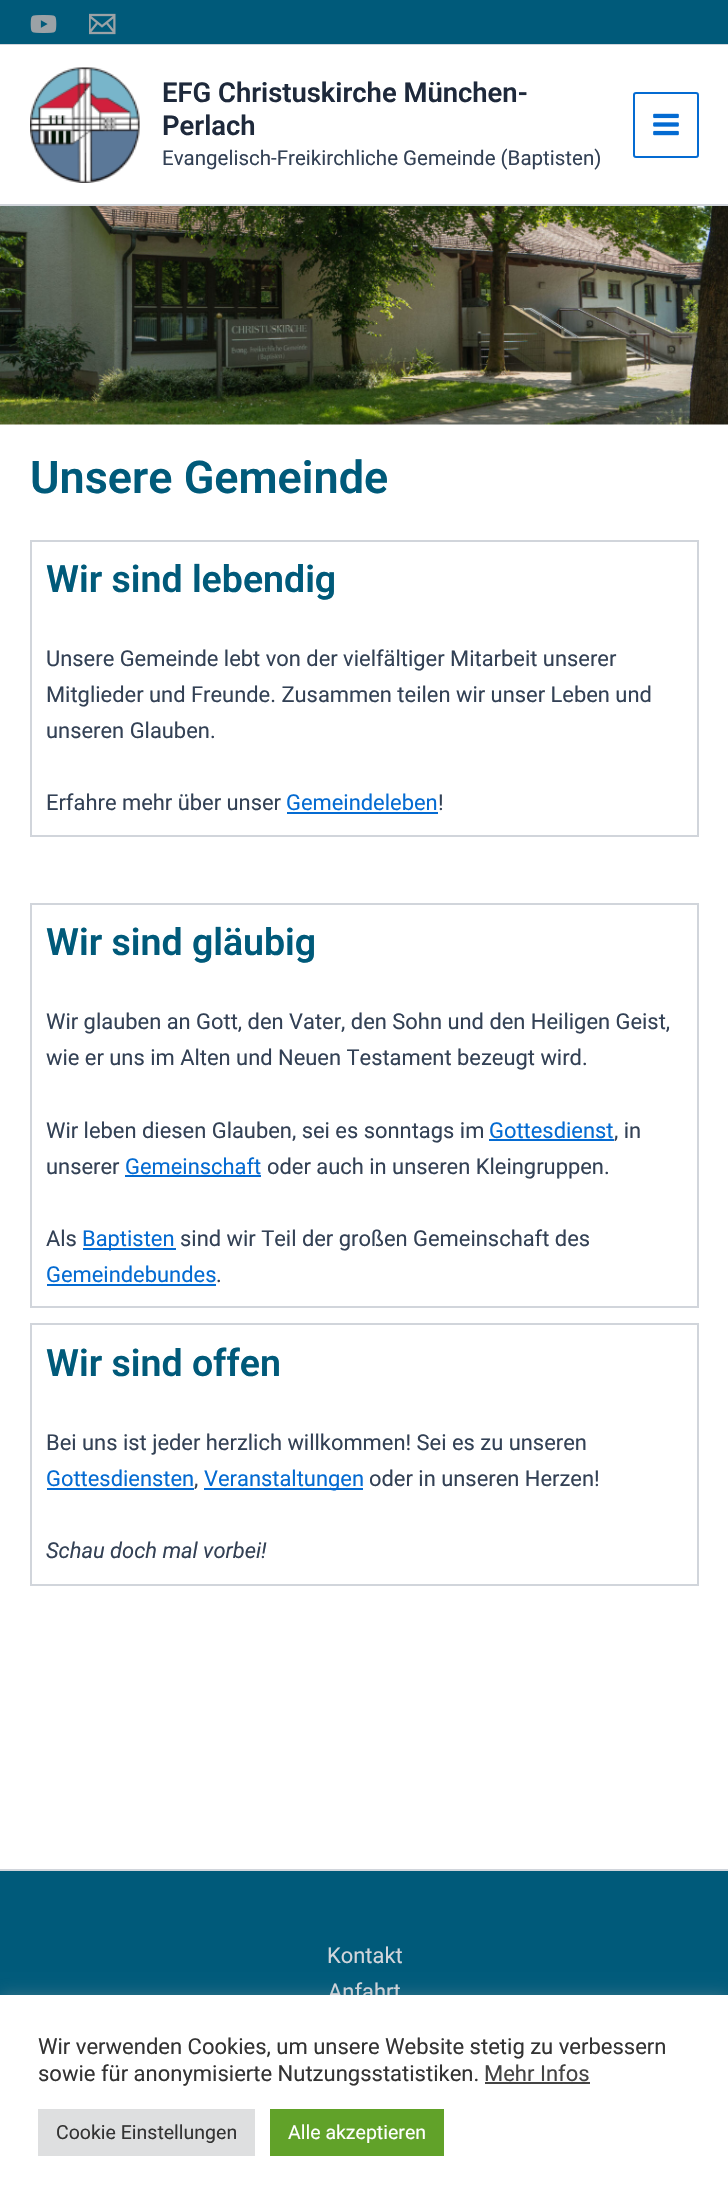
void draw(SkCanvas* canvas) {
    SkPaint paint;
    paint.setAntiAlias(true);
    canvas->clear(0xFFFFFFFF);
    paint.setColor(0xFF005A7A);
    canvas->drawRect(SkRect::MakeXYWH(0, 0, 728, 44), paint);
    paint.setColor(0xFFD1D5DB);
    canvas->drawRect(SkRect::MakeXYWH(0, 44, 728, 1), paint);
    canvas->drawImageRect(SkImages::DeferredFromEncodedData(SkData::MakeFromFileName("img1.png")), SkRect::MakeXYWH(30, 15, 27, 18), SkSamplingOptions());
    canvas->drawImageRect(SkImages::DeferredFromEncodedData(SkData::MakeFromFileName("img2.png")), SkRect::MakeXYWH(89, 13, 27, 22), SkSamplingOptions());
    canvas->drawRect(SkRect::MakeXYWH(0, 204, 728, 2), paint);
    canvas->drawImageRect(SkImages::DeferredFromEncodedData(SkData::MakeFromFileName("img3.png")), SkRect::MakeXYWH(30, 67, 110, 116), SkSamplingOptions());
    SkFont font1(fontMgr->matchFamilyStyle("Roboto", SkFontStyle(600, SkFontStyle::kNormal_Width, SkFontStyle::kUpright_Slant)), 27.4f);
    font1.setSubpixel(true);
    paint.setColor(0xFF1E293B);
    canvas->drawString("EFG Christuskirche München-", 162, 102, font1, paint);
    canvas->drawString("Perlach", 162, 135, font1, paint);
    SkFont font2(fontMgr->matchFamilyStyle("Roboto", SkFontStyle::Normal()), 20.5f);
    font2.setSubpixel(true);
    paint.setColor(0xFF334155);
    canvas->drawString("Evangelisch-Freikirchliche Gemeinde (Baptisten)", 162, 165, font2, paint);
    paint.setStyle(SkPaint::kStroke_Style);
    paint.setStrokeWidth(2);
    paint.setColor(0xFF046BD2);
    canvas->drawRoundRect(SkRect::MakeXYWH(634, 93, 64, 64), 2, 2, paint);
    canvas->drawImageRect(SkImages::DeferredFromEncodedData(SkData::MakeFromFileName("img4.png")), SkRect::MakeXYWH(653, 113, 26, 23), SkSamplingOptions());
    canvas->drawImageRect(SkImages::DeferredFromEncodedData(SkData::MakeFromFileName("img5.png")), SkRect::MakeXYWH(0, 206, 728, 219), SkSamplingOptions());
    SkFont font3(fontMgr->matchFamilyStyle("Roboto", SkFontStyle(600, SkFontStyle::kNormal_Width, SkFontStyle::kUpright_Slant)), 45);
    font3.setSubpixel(true);
    paint.setStyle(SkPaint::kFill_Style);
    paint.setColor(0xFF005A7A);
    canvas->drawString("Unsere Gemeinde", 30, 493, font3, paint);
    paint.setStyle(SkPaint::kStroke_Style);
    paint.setColor(0xFFD1D5DB);
    canvas->drawRect(SkRect::MakeXYWH(31, 541, 667, 295), paint);
    SkFont font4(fontMgr->matchFamilyStyle("Roboto", SkFontStyle(600, SkFontStyle::kNormal_Width, SkFontStyle::kUpright_Slant)), 37.5f);
    font4.setSubpixel(true);
    paint.setStyle(SkPaint::kFill_Style);
    paint.setColor(0xFF005A7A);
    canvas->drawString("Wir sind lebendig", 46, 592, font4, paint);
    SkFont font5(fontMgr->matchFamilyStyle("Roboto", SkFontStyle::Normal()), 21.9f);
    font5.setSubpixel(true);
    paint.setColor(0xFF334155);
    canvas->drawString("Unsere Gemeinde lebt von der vielfältiger Mitarbeit unserer", 46, 666, font5, paint);
    canvas->drawString("Mitglieder und Freunde. Zusammen teilen wir unser Leben und", 46, 702, font5, paint);
    canvas->drawString("unseren Glauben.", 46, 738, font5, paint);
    canvas->drawString("Erfahre mehr über unser", 46, 810, font5, paint);
    paint.setColor(0xFF046BD2);
    canvas->drawString("Gemeindeleben", 286, 810, font5, paint);
    canvas->drawRect(SkRect::MakeXYWH(287, 812, 151, 2), paint);
    paint.setColor(0xFF334155);
    canvas->drawString("!", 438, 810, font5, paint);
    paint.setStyle(SkPaint::kStroke_Style);
    paint.setColor(0xFFD1D5DB);
    canvas->drawRect(SkRect::MakeXYWH(31, 904, 667, 403), paint);
    paint.setStyle(SkPaint::kFill_Style);
    paint.setColor(0xFF005A7A);
    canvas->drawString("Wir sind gläubig", 46, 955, font4, paint);
    paint.setColor(0xFF334155);
    canvas->drawString("Wir glauben an Gott, den Vater, den Sohn und den Heiligen Geist,", 46, 1029, font5, paint);
    canvas->drawString("wie er uns im Alten und Neuen Testament bezeugt wird.", 46, 1065, font5, paint);
    canvas->drawString("Wir leben diesen Glauben, sei es sonntags im", 46, 1138, font5, paint);
    paint.setColor(0xFF046BD2);
    canvas->drawString("Gottesdienst", 489, 1138, font5, paint);
    canvas->drawRect(SkRect::MakeXYWH(489, 1139, 125, 2), paint);
    paint.setColor(0xFF334155);
    canvas->drawString(", in", 614, 1138, font5, paint);
    canvas->drawString("unserer", 46, 1174, font5, paint);
    paint.setColor(0xFF046BD2);
    canvas->drawString("Gemeinschaft", 125, 1174, font5, paint);
    canvas->drawRect(SkRect::MakeXYWH(125, 1175, 136, 2), paint);
    paint.setColor(0xFF334155);
    canvas->drawString("oder auch in unseren Kleingruppen.", 267, 1174, font5, paint);
    canvas->drawString("Als", 46, 1246, font5, paint);
    paint.setColor(0xFF046BD2);
    canvas->drawRect(SkRect::MakeXYWH(83, 1248, 93, 2), paint);
    canvas->drawString("Baptisten", 82, 1246, font5, paint);
    paint.setColor(0xFF334155);
    canvas->drawString("sind wir Teil der großen Gemeinschaft des", 180, 1246, font5, paint);
    paint.setColor(0xFF046BD2);
    canvas->drawString("Gemeindebundes", 46, 1282, font5, paint);
    canvas->drawRect(SkRect::MakeXYWH(47, 1284, 169, 2), paint);
    paint.setColor(0xFF334155);
    canvas->drawString(".", 216, 1282, font5, paint);
    paint.setStyle(SkPaint::kStroke_Style);
    paint.setColor(0xFFD1D5DB);
    canvas->drawRect(SkRect::MakeXYWH(31, 1324, 667, 261), paint);
    paint.setStyle(SkPaint::kFill_Style);
    paint.setColor(0xFF005A7A);
    canvas->drawString("Wir sind offen", 46, 1376, font4, paint);
    paint.setColor(0xFF334155);
    canvas->drawString("Bei uns ist jeder herzlich willkommen! Sei es zu unseren", 46, 1450, font5, paint);
    paint.setColor(0xFF046BD2);
    canvas->drawString("Gottesdiensten", 46, 1486, font5, paint);
    canvas->drawRect(SkRect::MakeXYWH(47, 1488, 147, 2), paint);
    paint.setColor(0xFF334155);
    canvas->drawString(",", 194, 1486, font5, paint);
    paint.setColor(0xFF046BD2);
    canvas->drawRect(SkRect::MakeXYWH(204, 1488, 159, 2), paint);
    canvas->drawString("Veranstaltungen", 204, 1486, font5, paint);
    paint.setColor(0xFF334155);
    canvas->drawString("oder in unseren Herzen!", 369, 1486, font5, paint);
    SkFont font6(fontMgr->matchFamilyStyle("Roboto", SkFontStyle::Italic()), 21.9f);
    font6.setSubpixel(true);
    canvas->drawString("Schau doch mal vorbei!", 46, 1558, font6, paint);
    paint.setColor(0xFF005A7A);
    canvas->drawRect(SkRect::MakeXYWH(0, 1871, 728, 124), paint);
    paint.setColor(0xFFD1D5DB);
    canvas->drawRect(SkRect::MakeXYWH(0, 1869, 728, 2), paint);
    canvas->drawString("Kontakt", 327, 1963, font5, paint);
    canvas->drawString("Anfahrt", 328, 1999, font5, paint);
    paint.setColor(0x4DACABAB);
    paint.setMaskFilter(SkMaskFilter::MakeBlur(kNormal_SkBlurStyle, 7.5f));
    canvas->drawRect(SkRect::MakeXYWH(0, 1994, 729, 205), paint);
    paint.setMaskFilter(nullptr);
    paint.setColor(0xFFFFFFFF);
    canvas->drawRect(SkRect::MakeXYWH(0, 1995, 728, 205), paint);
    SkFont font7(fontMgr->matchFamilyStyle("Roboto", SkFontStyle::Normal()), 22);
    font7.setSubpixel(true);
    paint.setColor(0xFF333333);
    canvas->drawString("Wir verwenden Cookies, um unsere Website stetig zu verbessern", 38, 2054, font7, paint);
    canvas->drawString("sowie für anonymisierte Nutzungsstatistiken.", 38, 2081, font7, paint);
    paint.setColor(0xFF444444);
    canvas->drawString("Mehr Infos", 484, 2081, font7, paint);
    canvas->drawRect(SkRect::MakeXYWH(485, 2082, 105, 2), paint);
    paint.setColor(0xFFDEDFE0);
    canvas->drawRect(SkRect::MakeXYWH(38, 2109, 217, 47), paint);
    SkFont font8(fontMgr->matchFamilyStyle("Roboto", SkFontStyle::Normal()), 19.5f);
    font8.setSubpixel(true);
    paint.setColor(0xFF333333);
    canvas->drawString("Cookie Einstellungen", 56, 2139, font8, paint);
    paint.setColor(0xFF61A229);
    canvas->drawRect(SkRect::MakeXYWH(270, 2109, 174, 47), paint);
    paint.setColor(0xFFFFFFFF);
    canvas->drawString("Alle akzeptieren", 288, 2139, font8, paint);
}
